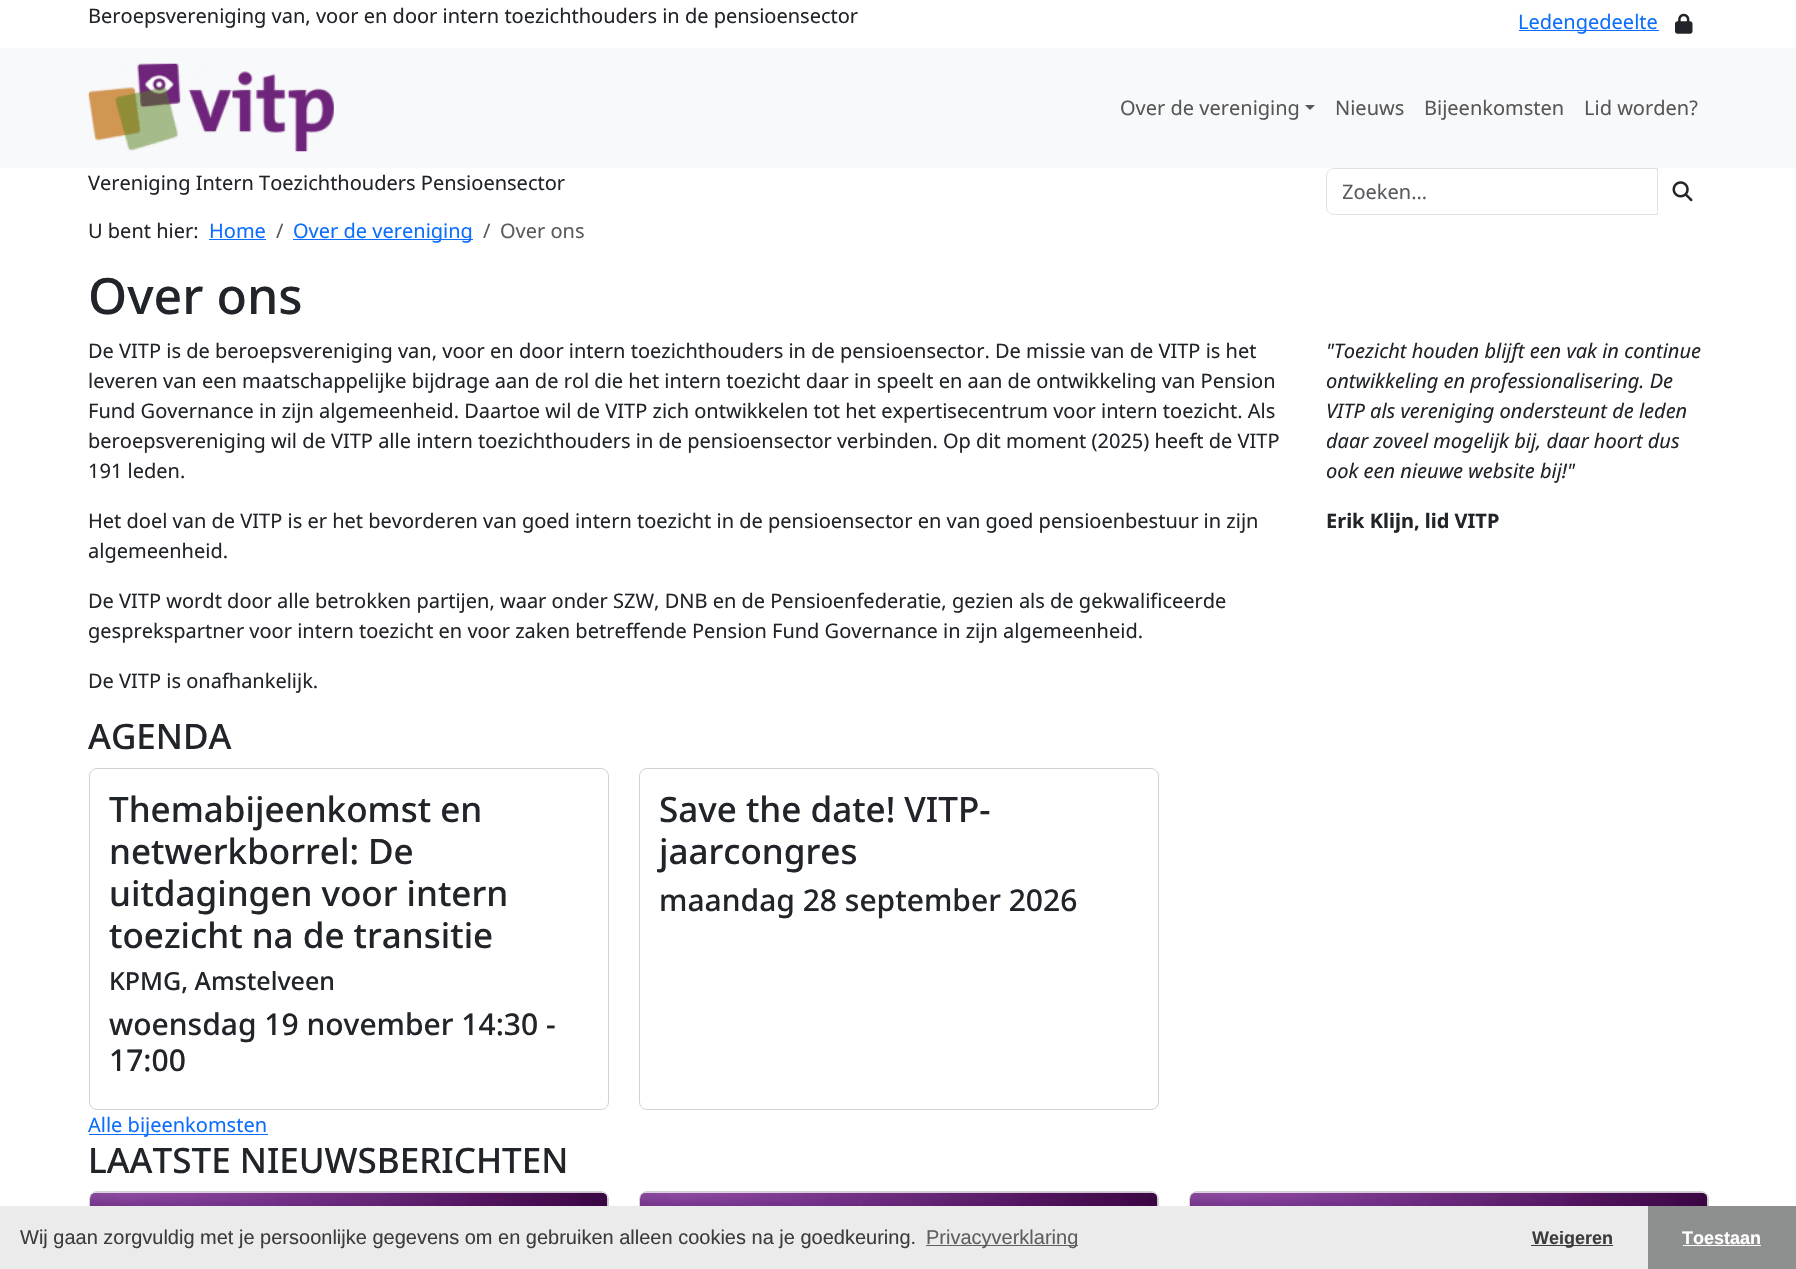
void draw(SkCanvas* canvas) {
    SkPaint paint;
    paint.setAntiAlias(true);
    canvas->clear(0xFFFFFFFF);
    SkFont font1(fontMgr->matchFamilyStyle("Noto Sans", SkFontStyle::Normal()), 20);
    font1.setSubpixel(true);
    paint.setColor(0xFF212529);
    canvas->drawString("Beroepsvereniging van, voor en door intern toezichthouders in de pensioensector", 88, 23, font1, paint);
    paint.setColor(0xFF0D6EFD);
    canvas->drawRect(SkRect::MakeXYWH(1519, 30, 140, 1), paint);
    canvas->drawString("Ledengedeelte", 1518, 29, font1, paint);
    canvas->drawImageRect(SkImages::DeferredFromEncodedData(SkData::MakeFromFileName("img1.png")), SkRect::MakeXYWH(1675, 13, 18, 21), SkSamplingOptions());
    paint.setColor(0xFFF8F9FA);
    canvas->drawRect(SkRect::MakeXYWH(0, 48, 1796, 120), paint);
    canvas->drawImageRect(SkImages::DeferredFromEncodedData(SkData::MakeFromFileName("img2.png")), SkRect::MakeXYWH(88, 63, 246, 89), SkSamplingOptions());
    paint.setColor(0xFF575758);
    canvas->drawString("Over de vereniging", 1120, 115, font1, paint);
    canvas->drawPath(SkPathBuilder().moveTo(1305, 105).lineTo(1315, 105).lineTo(1310, 110).close().detach(), paint);
    canvas->drawString("Nieuws", 1335, 115, font1, paint);
    canvas->drawString("Bijeenkomsten", 1424, 115, font1, paint);
    canvas->drawString("Lid worden?", 1584, 115, font1, paint);
    paint.setColor(0xFF212529);
    canvas->drawString("Vereniging Intern Toezichthouders Pensioensector", 88, 190, font1, paint);
    paint.setStyle(SkPaint::kStroke_Style);
    paint.setStrokeWidth(1);
    paint.setColor(0xFFDEE2E6);
    canvas->drawPath(SkPathBuilder().moveTo(1334, 168.5f).lineTo(1657.5f, 168.5f).lineTo(1657.5f, 214.5f).lineTo(1334, 214.5f).cubicTo(1330, 214.5f, 1326.5f, 211, 1326.5f, 207).lineTo(1326.5f, 176).cubicTo(1326.5f, 172, 1330, 168.5f, 1334, 168.5f).close().detach(), paint);
    canvas->save();
    canvas->clipRect(SkRect::MakeXYWH(1343, 178, 298, 27));
    paint.setStyle(SkPaint::kFill_Style);
    paint.setColor(0xFF595C5F);
    canvas->drawString("Zoeken…", 1342, 199, font1, paint);
    canvas->restore();
    canvas->drawImageRect(SkImages::DeferredFromEncodedData(SkData::MakeFromFileName("img3.png")), SkRect::MakeXYWH(1672, 181, 21, 21), SkSamplingOptions());
    paint.setColor(0xFF212529);
    canvas->drawString("U bent hier:", 88, 238, font1, paint);
    paint.setColor(0xFF0D6EFD);
    canvas->drawString("Home", 209, 238, font1, paint);
    canvas->drawRect(SkRect::MakeXYWH(209, 239, 57, 1), paint);
    paint.setColor(0xFF595C5F);
    canvas->drawString("/", 276, 238, font1, paint);
    paint.setColor(0xFF0D6EFD);
    canvas->drawRect(SkRect::MakeXYWH(293, 239, 180, 1), paint);
    canvas->drawString("Over de vereniging", 293, 238, font1, paint);
    paint.setColor(0xFF595C5F);
    canvas->drawString("/", 483, 238, font1, paint);
    canvas->drawString("Over ons", 500, 238, font1, paint);
    SkFont font2(fontMgr->matchFamilyStyle("Noto Sans", SkFontStyle(500, SkFontStyle::kNormal_Width, SkFontStyle::kUpright_Slant)), 50);
    font2.setSubpixel(true);
    paint.setColor(0xFF212529);
    canvas->drawString("Over ons", 88, 314, font2, paint);
    canvas->drawString("De VITP is de beroepsvereniging van, voor en door intern toezichthouders in de pensioensector. De missie van de VITP is het", 88, 358, font1, paint);
    canvas->drawString("leveren van een maatschappelijke bijdrage aan de rol die het intern toezicht daar in speelt en aan de ontwikkeling van Pension", 88, 388, font1, paint);
    canvas->drawString("Fund Governance in zijn algemeenheid. Daartoe wil de VITP zich ontwikkelen tot het expertisecentrum voor intern toezicht. Als", 88, 418, font1, paint);
    canvas->drawString("beroepsvereniging wil de VITP alle intern toezichthouders in de pensioensector verbinden. Op dit moment (2025) heeft de VITP", 88, 448, font1, paint);
    canvas->drawString("191 leden.", 88, 478, font1, paint);
    canvas->drawString("Het doel van de VITP is er het bevorderen van goed intern toezicht in de pensioensector en van goed pensioenbestuur in zijn", 88, 528, font1, paint);
    canvas->drawString("algemeenheid.", 88, 558, font1, paint);
    canvas->drawString("De VITP wordt door alle betrokken partijen, waar onder SZW, DNB en de Pensioenfederatie, gezien als de gekwalificeerde", 88, 608, font1, paint);
    canvas->drawString("gesprekspartner voor intern toezicht en voor zaken betreffende Pension Fund Governance in zijn algemeenheid.", 88, 638, font1, paint);
    canvas->drawString("De VITP is onafhankelijk.", 88, 688, font1, paint);
    SkFont font3(fontMgr->matchFamilyStyle("Noto Sans", SkFontStyle::Italic()), 20);
    font3.setSubpixel(true);
    canvas->drawString("\"Toezicht houden blijft een vak in continue", 1326, 358, font3, paint);
    canvas->drawString("ontwikkeling en professionalisering. De", 1326, 388, font3, paint);
    canvas->drawString("VITP als vereniging ondersteunt de leden", 1326, 418, font3, paint);
    canvas->drawString("daar zoveel mogelijk bij, daar hoort dus", 1326, 448, font3, paint);
    canvas->drawString("ook een nieuwe website bij!\"", 1326, 478, font3, paint);
    SkFont font4(fontMgr->matchFamilyStyle("Noto Sans", SkFontStyle::Bold()), 20);
    font4.setSubpixel(true);
    canvas->drawString("Erik Klijn, lid VITP", 1326, 528, font4, paint);
    SkFont font5(fontMgr->matchFamilyStyle("Noto Sans", SkFontStyle(500, SkFontStyle::kNormal_Width, SkFontStyle::kUpright_Slant)), 35);
    font5.setSubpixel(true);
    canvas->drawString("AGENDA", 88, 749, font5, paint);
    paint.setStyle(SkPaint::kStroke_Style);
    paint.setColor(0xFFD2D2D2);
    canvas->drawRoundRect(SkRect::MakeXYWH(89.5f, 768.5f, 519, 341), 7.5f, 7.5f, paint);
    paint.setStyle(SkPaint::kFill_Style);
    paint.setColor(0xFF212529);
    canvas->drawString("Themabijeenkomst en", 109, 822, font5, paint);
    canvas->drawString("netwerkborrel: De", 109, 864, font5, paint);
    canvas->drawString("uitdagingen voor intern", 109, 906, font5, paint);
    canvas->drawString("toezicht na de transitie", 109, 948, font5, paint);
    SkFont font6(fontMgr->matchFamilyStyle("Noto Sans", SkFontStyle(500, SkFontStyle::kNormal_Width, SkFontStyle::kUpright_Slant)), 25);
    font6.setSubpixel(true);
    canvas->drawString("KPMG, Amstelveen", 109, 990, font6, paint);
    SkFont font7(fontMgr->matchFamilyStyle("Noto Sans", SkFontStyle(500, SkFontStyle::kNormal_Width, SkFontStyle::kUpright_Slant)), 30);
    font7.setSubpixel(true);
    canvas->drawString("woensdag 19 november 14:30 -", 109, 1035, font7, paint);
    canvas->drawString("17:00", 109, 1071, font7, paint);
    paint.setStyle(SkPaint::kStroke_Style);
    paint.setColor(0xFFD2D2D2);
    canvas->drawRoundRect(SkRect::MakeXYWH(639.5f, 768.5f, 519, 341), 7.5f, 7.5f, paint);
    paint.setStyle(SkPaint::kFill_Style);
    paint.setColor(0xFF212529);
    canvas->drawString("Save the date! VITP-", 659, 822, font5, paint);
    canvas->drawString("jaarcongres", 659, 864, font5, paint);
    canvas->drawString("maandag 28 september 2026", 659, 911, font7, paint);
    paint.setColor(0xFF0D6EFD);
    canvas->drawRect(SkRect::MakeXYWH(89, 1134, 179, 1), paint);
    canvas->drawString("Alle bijeenkomsten", 88, 1132, font1, paint);
    paint.setColor(0xFF212529);
    canvas->drawString("LAATSTE NIEUWSBERICHTEN", 88, 1173, font5, paint);
    paint.setStyle(SkPaint::kStroke_Style);
    paint.setColor(0xFFD2D2D2);
    canvas->drawRoundRect(SkRect::MakeXYWH(89.5f, 1191.5f, 519, 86), 7.5f, 7.5f, paint);
    canvas->drawImageRect(SkImages::DeferredFromEncodedData(SkData::MakeFromFileName("img4.png")), SkRect::MakeXYWH(90, 1192, 518, 14), SkSamplingOptions());
    canvas->drawRoundRect(SkRect::MakeXYWH(639.5f, 1191.5f, 519, 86), 7.5f, 7.5f, paint);
    canvas->drawImageRect(SkImages::DeferredFromEncodedData(SkData::MakeFromFileName("img5.png")), SkRect::MakeXYWH(640, 1192, 518, 14), SkSamplingOptions());
    canvas->drawRoundRect(SkRect::MakeXYWH(1189.5f, 1191.5f, 519, 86), 7.5f, 7.5f, paint);
    canvas->drawImageRect(SkImages::DeferredFromEncodedData(SkData::MakeFromFileName("img6.png")), SkRect::MakeXYWH(1190, 1192, 518, 14), SkSamplingOptions());
    paint.setStyle(SkPaint::kFill_Style);
    paint.setColor(0xFFEBEBEB);
    canvas->drawRect(SkRect::MakeXYWH(0, 1206, 1648, 63), paint);
    SkFont font8(fontMgr->matchFamilyStyle("Liberation Sans", SkFontStyle::Normal()), 20);
    font8.setSubpixel(true);
    paint.setColor(0xFF3C3C3C);
    canvas->drawString("Wij gaan zorgvuldig met je persoonlijke gegevens om en gebruiken alleen cookies na je goedkeuring.", 20, 1244, font8, paint);
    paint.setColor(0xFF5F5F5F);
    canvas->drawRect(SkRect::MakeXYWH(926, 1245, 152, 1), paint);
    canvas->drawString("Privacyverklaring", 926, 1244, font8, paint);
    paint.setColor(0xFF3C3C3C);
    canvas->drawRect(SkRect::MakeXYWH(1531, 1245, 82, 1), paint);
    SkFont font9(fontMgr->matchFamilyStyle("Liberation Sans", SkFontStyle::Bold()), 18);
    font9.setSubpixel(true);
    canvas->drawString("Weigeren", 1532, 1244, font9, paint);
    paint.setColor(0xFF8E9090);
    canvas->drawRect(SkRect::MakeXYWH(1648, 1206, 148, 63), paint);
    paint.setColor(0xFFFFFFFF);
    canvas->drawString("Toestaan", 1682, 1244, font9, paint);
    canvas->drawRect(SkRect::MakeXYWH(1683, 1245, 78, 1), paint);
}
